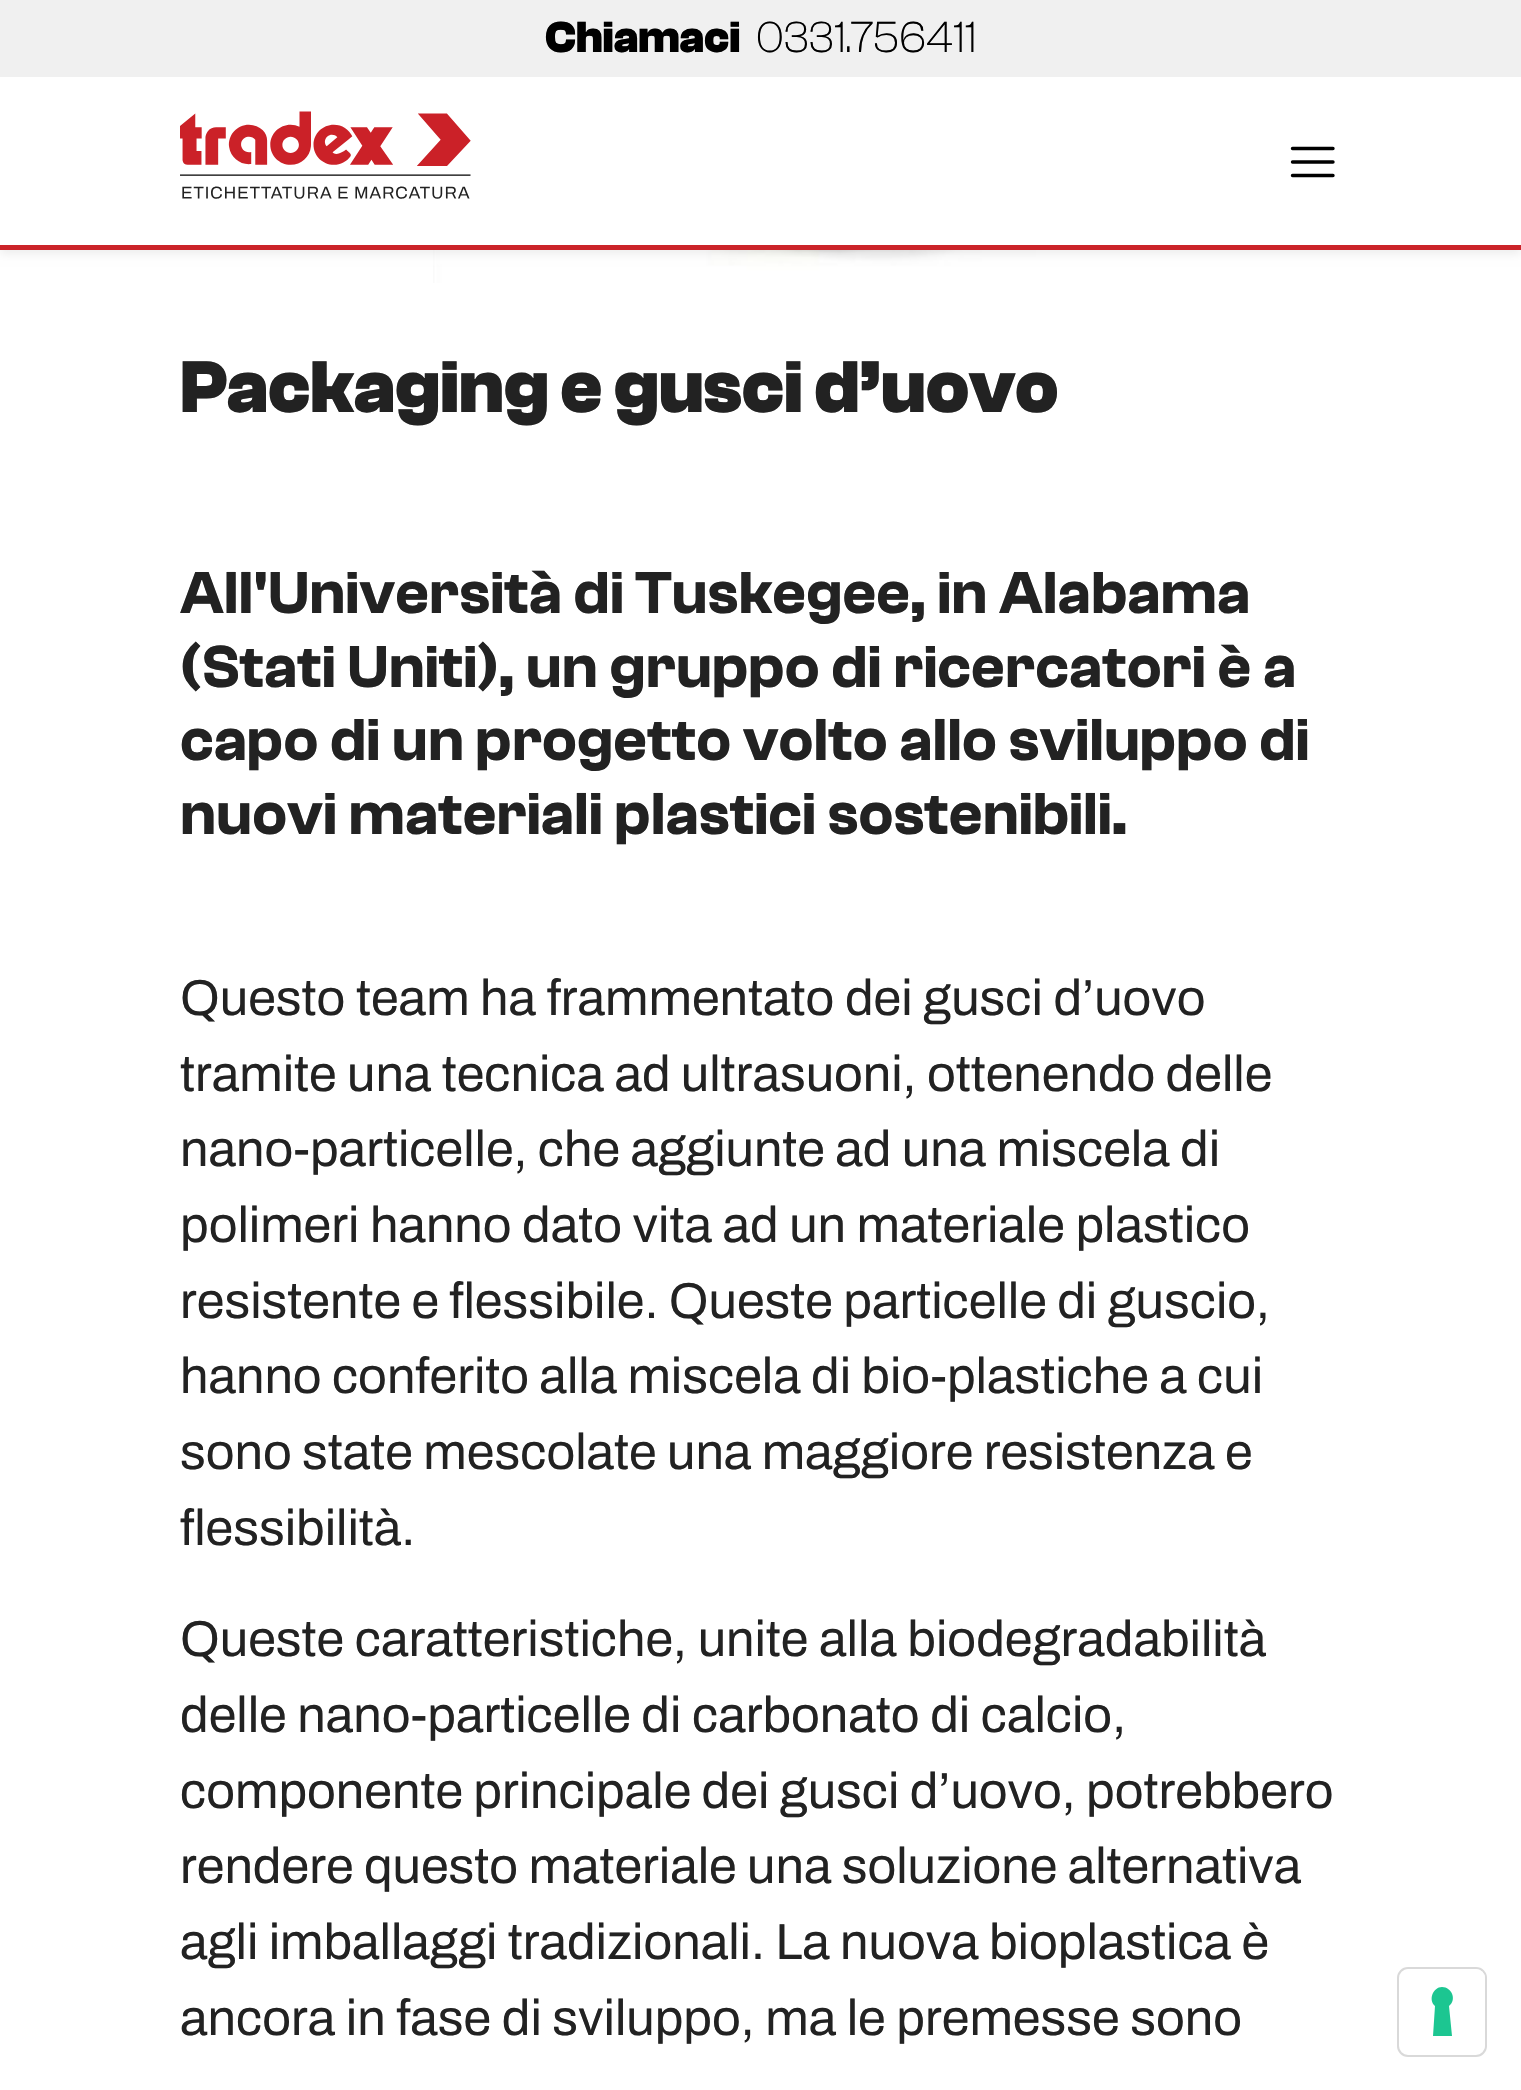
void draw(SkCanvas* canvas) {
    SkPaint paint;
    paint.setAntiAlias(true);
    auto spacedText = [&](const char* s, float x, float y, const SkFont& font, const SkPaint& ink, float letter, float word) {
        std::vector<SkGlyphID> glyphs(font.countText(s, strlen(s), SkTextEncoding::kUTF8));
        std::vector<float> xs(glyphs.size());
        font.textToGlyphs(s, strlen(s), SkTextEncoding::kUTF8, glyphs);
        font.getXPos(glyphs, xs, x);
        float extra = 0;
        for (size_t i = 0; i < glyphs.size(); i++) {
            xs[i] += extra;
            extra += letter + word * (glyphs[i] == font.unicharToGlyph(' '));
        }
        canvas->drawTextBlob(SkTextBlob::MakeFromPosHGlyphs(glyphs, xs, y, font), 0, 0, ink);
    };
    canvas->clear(0xFFFFFFFF);
    canvas->drawImageRect(SkImages::DeferredFromEncodedData(SkData::MakeFromFileName("img2.png")), SkRect::MakeXYWH(433, 250, 638, 33), SkSamplingOptions());
    paint.setColor(0x12000000);
    paint.setMaskFilter(SkMaskFilter::MakeBlur(kNormal_SkBlurStyle, 4.5f));
    canvas->drawRect(SkRect::MakeXYWH(0, 5, 1521, 249), paint);
    paint.setMaskFilter(nullptr);
    paint.setColor(0xFFFFFFFF);
    canvas->drawRect(SkRect::MakeXYWH(0, 77, 1521, 168), paint);
    paint.setColor(0xFFF0F0F0);
    canvas->drawRect(SkRect::MakeXYWH(0, 0, 1521, 77), paint);
    SkFont font1(fontMgr->matchFamilyStyle("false", SkFontStyle::Bold()), 45);
    font1.setSubpixel(true);
    paint.setColor(0xFF000000);
    canvas->drawString("Chiamaci", 545, 52, font1, paint);
    SkFont font2(fontMgr->matchFamilyStyle("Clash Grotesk", SkFontStyle(300, SkFontStyle::kNormal_Width, SkFontStyle::kUpright_Slant)), 45);
    font2.setSubpixel(true);
    canvas->drawString("0331.756411", 756, 52, font2, paint);
    paint.setColor(0xFFCB2329);
    canvas->drawRect(SkRect::MakeXYWH(0, 245, 1521, 5), paint);
    canvas->drawImageRect(SkImages::DeferredFromEncodedData(SkData::MakeFromFileName("img1.png")), SkRect::MakeXYWH(180, 111, 291, 88), SkSamplingOptions());
    paint.setStyle(SkPaint::kStroke_Style);
    paint.setStrokeWidth(3.4f);
    paint.setStrokeCap(SkPaint::kRound_Cap);
    paint.setStrokeJoin(SkPaint::kRound_Join);
    paint.setColor(0xFF000000);
    canvas->drawPath(SkPathBuilder().moveTo(1292.5f, 162).lineTo(1333, 162).moveTo(1292.5f, 148.5f).lineTo(1333, 148.5f).moveTo(1292.5f, 175.5f).lineTo(1333, 175.5f).detach(), paint);
    SkFont font3(fontMgr->matchFamilyStyle("false", SkFontStyle::Bold()), 75.6f);
    font3.setSubpixel(true);
    paint.setStyle(SkPaint::kFill_Style);
    paint.setColor(0xFF222222);
    canvas->drawString("Packaging e gusci d’uovo", 180, 412, font3, paint);
    SkFont font4(fontMgr->matchFamilyStyle("Clash Grotesk", SkFontStyle(600, SkFontStyle::kNormal_Width, SkFontStyle::kUpright_Slant)), 61.25f);
    font4.setSubpixel(true);
    canvas->drawString("All'Università di Tuskegee, in Alabama", 180, 613, font4, paint);
    canvas->drawString("(Stati Uniti), un gruppo di ricercatori è a", 180, 687, font4, paint);
    canvas->drawString("capo di un progetto volto allo sviluppo di", 180, 760, font4, paint);
    canvas->drawString("nuovi materiali plastici sostenibili.", 180, 834, font4, paint);
    SkFont font5(fontMgr->matchFamilyStyle("Archivo", SkFontStyle::Normal()), 50.5f);
    font5.setSubpixel(true);
    canvas->drawString("Questo team ha frammentato dei gusci d’uovo", 180, 1015, font5, paint);
    spacedText("tramite una tecnica ad ultrasuoni, ottenendo delle", 180, 1091, font5, paint, 0, -0.25f);
    spacedText("nano-particelle, che aggiunte ad una miscela di", 180, 1166, font5, paint, 0, -0.25f);
    canvas->drawString("polimeri hanno dato vita ad un materiale plastico", 180, 1242, font5, paint);
    spacedText("resistente e flessibile. Queste particelle di guscio,", 180, 1318, font5, paint, 0, -0.25f);
    spacedText("hanno conferito alla miscela di bio-plastiche a cui", 180, 1393, font5, paint, 0, -0.25f);
    spacedText("sono state mescolate una maggiore resistenza e", 180, 1469, font5, paint, 0, -0.25f);
    canvas->drawString("flessibilità.", 180, 1545, font5, paint);
    canvas->drawString("Queste caratteristiche, unite alla biodegradabilità", 180, 1656, font5, paint);
    canvas->drawString("delle nano-particelle di carbonato di calcio,", 180, 1732, font5, paint);
    spacedText("componente principale dei gusci d’uovo, potrebbero", 180, 1808, font5, paint, 0, -0.25f);
    spacedText("rendere questo materiale una soluzione alternativa", 180, 1883, font5, paint, 0, -0.25f);
    spacedText("agli imballaggi tradizionali. La nuova bioplastica è", 180, 1959, font5, paint, 0, -0.25f);
    canvas->drawString("ancora in fase di sviluppo, ma le premesse sono", 180, 2035, font5, paint);
    paint.setStyle(SkPaint::kStroke_Style);
    paint.setStrokeWidth(2);
    paint.setStrokeCap(SkPaint::kButt_Cap);
    paint.setStrokeJoin(SkPaint::kMiter_Join);
    paint.setColor(0xFFD9D9D9);
    canvas->drawRoundRect(SkRect::MakeXYWH(1398, 1968, 88, 88), 10, 10, paint);
    paint.setStyle(SkPaint::kFill_Style);
    paint.setColor(0xFFFFFFFF);
    canvas->drawRoundRect(SkRect::MakeXYWH(1400, 1969, 85, 85), 9, 9, paint);
    paint.setColor(0xFF1CC691);
    canvas->drawPath(SkPathBuilder(SkPathFillType::kEvenOdd).moveTo(1442, 1987).cubicTo(1452, 1987, 1457, 2000, 1449, 2006).lineTo(1452, 2036).lineTo(1433, 2036).lineTo(1435, 2006).cubicTo(1428, 2000, 1433, 1987, 1442, 1987).close().detach(), paint);
}
